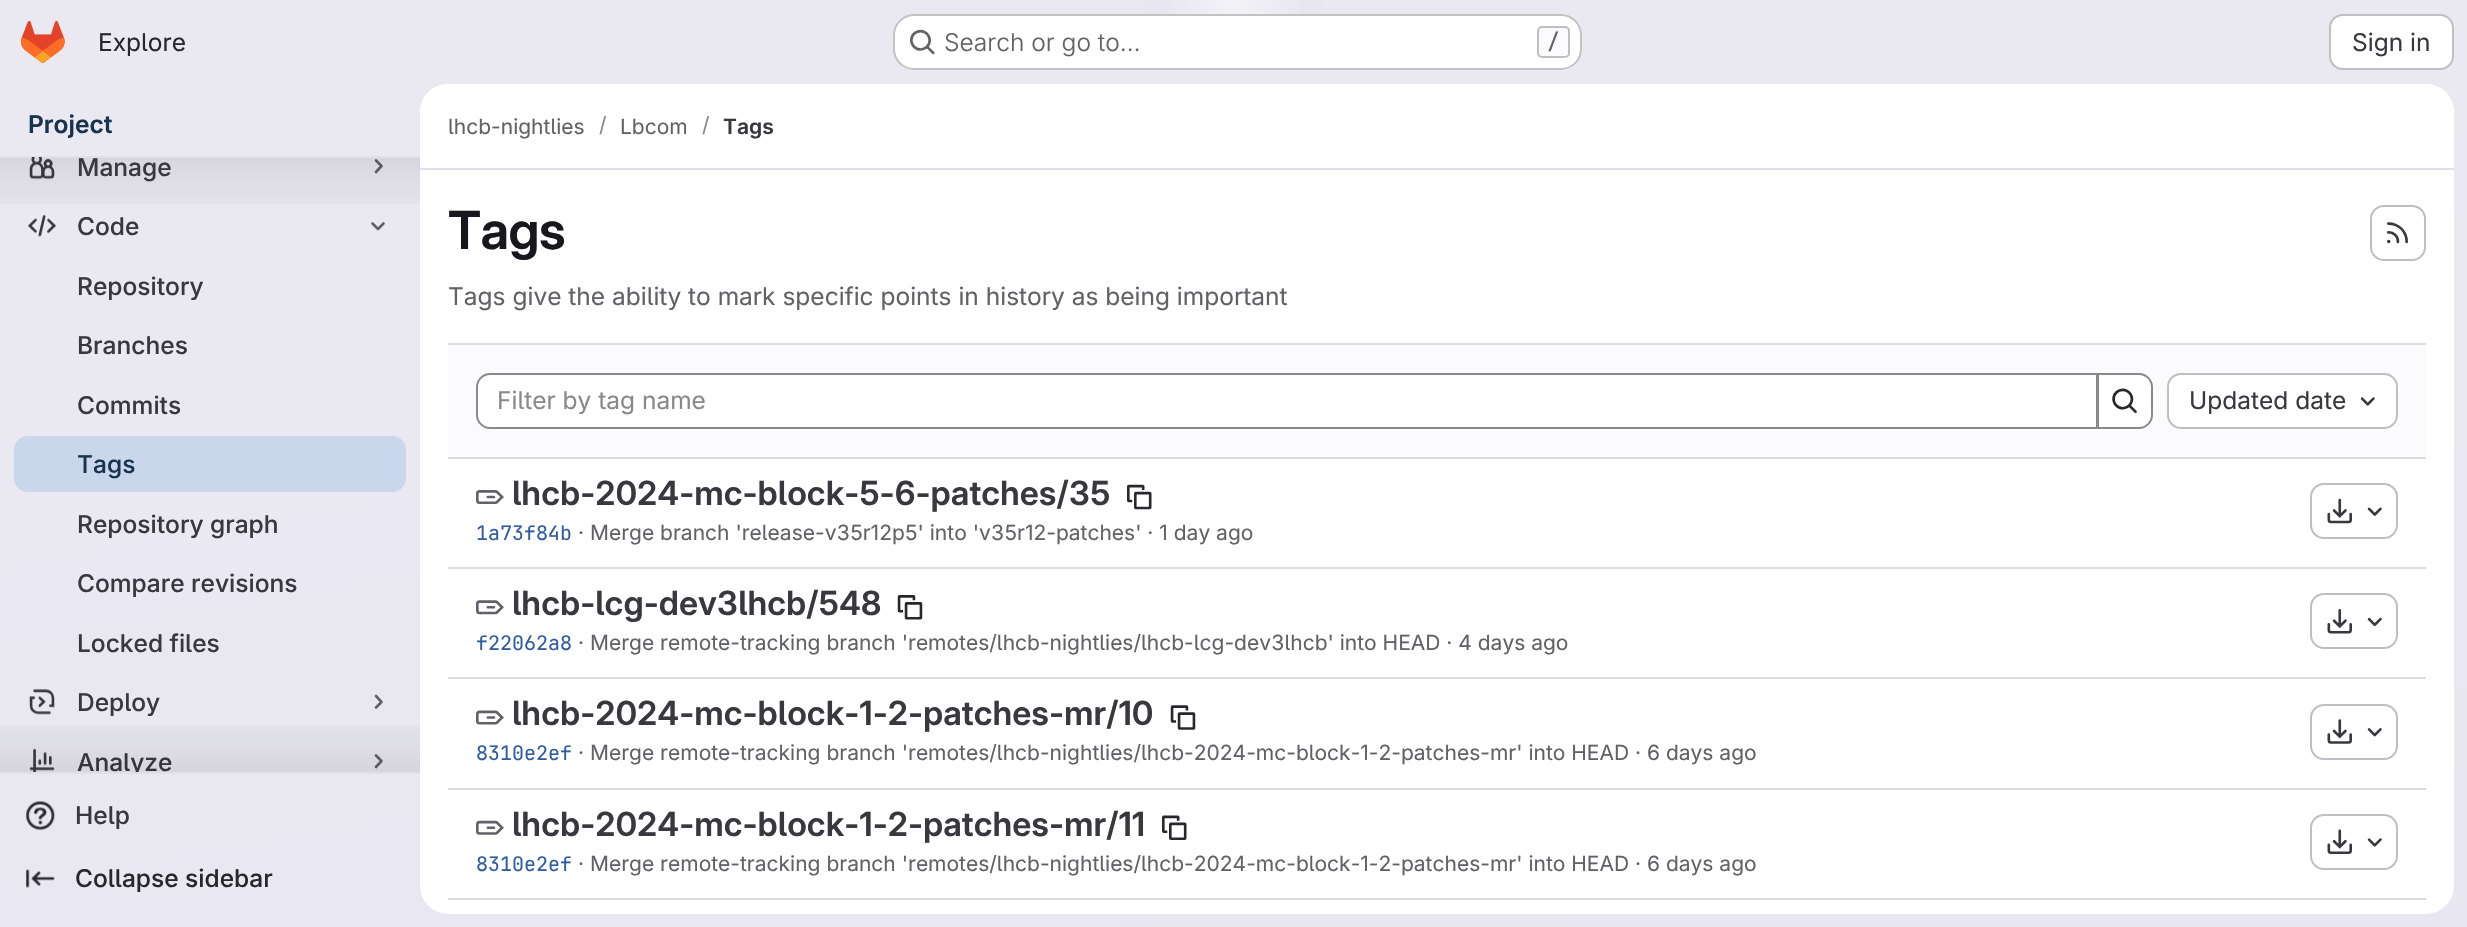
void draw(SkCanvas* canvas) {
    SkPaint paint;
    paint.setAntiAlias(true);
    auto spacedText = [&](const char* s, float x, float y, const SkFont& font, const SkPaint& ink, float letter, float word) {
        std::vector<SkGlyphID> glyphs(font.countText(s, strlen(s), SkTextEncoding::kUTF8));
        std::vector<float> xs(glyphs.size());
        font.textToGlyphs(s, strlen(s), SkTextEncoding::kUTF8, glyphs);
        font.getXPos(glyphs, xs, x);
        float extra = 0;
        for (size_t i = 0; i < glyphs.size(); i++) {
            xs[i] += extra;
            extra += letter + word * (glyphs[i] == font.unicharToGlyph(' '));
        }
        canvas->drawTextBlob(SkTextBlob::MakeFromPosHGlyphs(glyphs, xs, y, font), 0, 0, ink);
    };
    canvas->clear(0xFFFFFFFF);
    {
        const SkColor colors[] = {0xFFE8E6F0, 0xFFEAE9F2};
        const float stops[] = {0, 0.7f};
        const SkPoint ends[] = {{1350, 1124}, {1117, -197}};
        paint.setShader(SkGradientShader::MakeLinear(ends, colors, stops, 2, SkTileMode::kClamp));
        paint.setAlpha(255);
    }
    canvas->drawRect(SkRect::MakeXYWH(0, 0, 2467, 927), paint);
    {
        const SkColor colors[] = {0xFFE4E2ED, 0x00E4E2ED};
        const float stops[] = {0, 0.1f};
        SkMatrix m = SkMatrix::Translate(1234, 0).preScale(1234, 928);
        paint.setShader(SkGradientShader::MakeRadial({0, 0}, 1, colors, stops, 2, SkTileMode::kClamp, 0, &m));
        paint.setAlpha(255);
    }
    canvas->drawRect(SkRect::MakeXYWH(1145, 0, 177, 67), paint);
    {
        const SkColor colors[] = {0xFFE4E2EC, 0x00E4E2EC};
        const float stops[] = {0, 0.07f};
        SkMatrix m = SkMatrix::Translate(1234, 0).preScale(1234, 928);
        paint.setShader(SkGradientShader::MakeRadial({0, 0}, 1, colors, stops, 2, SkTileMode::kClamp, 0, &m));
        paint.setAlpha(255);
    }
    canvas->drawRect(SkRect::MakeXYWH(1200, 3, 68, 7), paint);
    {
        const SkColor colors[] = {0x99FFFFFF, 0x00FFFFFF};
        const float stops[] = {0, 0.05f};
        paint.setShader(SkGradientShader::MakeRadial({1234, 0}, 1544, colors, stops, 2, SkTileMode::kClamp));
        paint.setAlpha(255);
    }
    canvas->drawRect(SkRect::MakeXYWH(1169, 0, 130, 14), paint);
    canvas->drawImageRect(SkImages::DeferredFromEncodedData(SkData::MakeFromFileName("img1.png")), SkRect::MakeXYWH(21, 21, 44, 42), SkSamplingOptions());
    SkFont font1(fontMgr->matchFamilyStyle("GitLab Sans", SkFontStyle::Normal()), 24.5f);
    font1.setSubpixel(true);
    paint.setShader(nullptr);
    paint.setColor(0xFF28272D);
    canvas->drawString("Explore", 98, 51, font1, paint);
    paint.setColor(0xFFFFFFFF);
    canvas->drawRoundRect(SkRect::MakeXYWH(893, 14, 689, 56), 21, 21, paint);
    paint.setStyle(SkPaint::kStroke_Style);
    paint.setStrokeWidth(2);
    paint.setColor(0x3D050506);
    canvas->drawRoundRect(SkRect::MakeXYWH(894, 15, 687, 54), 20, 20, paint);
    canvas->drawImageRect(SkImages::DeferredFromEncodedData(SkData::MakeFromFileName("img2.png")), SkRect::MakeXYWH(910, 29, 25, 26), SkSamplingOptions());
    SkFont font2(fontMgr->matchFamilyStyle("GitLab Sans", SkFontStyle(300, SkFontStyle::kNormal_Width, SkFontStyle::kUpright_Slant)), 24.5f);
    font2.setSubpixel(true);
    paint.setStyle(SkPaint::kFill_Style);
    paint.setColor(0xFF626168);
    canvas->drawString("Search or go to…", 944, 51, font2, paint);
    paint.setColor(0xFFFBFAFD);
    canvas->drawRoundRect(SkRect::MakeXYWH(1538, 27, 31, 30), 4, 4, paint);
    paint.setStyle(SkPaint::kStroke_Style);
    paint.setColor(0xFFBFBFC3);
    canvas->drawRoundRect(SkRect::MakeXYWH(1538, 27, 31, 30), 4, 4, paint);
    SkFont font3(fontMgr->matchFamilyStyle("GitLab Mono", SkFontStyle(500, SkFontStyle::kNormal_Width, SkFontStyle::kUpright_Slant)), 21);
    font3.setSubpixel(true);
    paint.setStyle(SkPaint::kFill_Style);
    paint.setColor(0xFF626168);
    canvas->drawString("/", 1547, 49, font3, paint);
    paint.setColor(0xFFFFFFFF);
    canvas->drawRoundRect(SkRect::MakeXYWH(2330, 15, 123, 54), 13, 13, paint);
    paint.setStyle(SkPaint::kStroke_Style);
    paint.setColor(0xFFBFBFC3);
    canvas->drawRoundRect(SkRect::MakeXYWH(2330, 15, 123, 54), 13, 13, paint);
    paint.setStyle(SkPaint::kFill_Style);
    paint.setColor(0xFF3A383F);
    canvas->drawString("Sign in", 2352, 51, font1, paint);
    SkFont font4(fontMgr->matchFamilyStyle("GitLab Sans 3", SkFontStyle(600, SkFontStyle::kNormal_Width, SkFontStyle::kUpright_Slant)), 24.5f);
    font4.setSubpixel(true);
    paint.setColor(0xFF18334E);
    canvas->drawString("Project", 28, 133, font4, paint);
    paint.setColor(0xFFE1DFEC);
    canvas->drawRect(SkRect::MakeXYWH(0, 156, 420, 2), paint);
    canvas->drawRect(SkRect::MakeXYWH(0, 772, 420, 2), paint);
    canvas->drawImageRect(SkImages::DeferredFromEncodedData(SkData::MakeFromFileName("img3.png")), SkRect::MakeXYWH(29, 157, 26, 23), SkSamplingOptions());
    paint.setStyle(SkPaint::kStroke_Style);
    paint.setStrokeWidth(2.6f);
    paint.setStrokeCap(SkPaint::kRound_Cap);
    paint.setStrokeJoin(SkPaint::kRound_Join);
    paint.setColor(0xFF626168);
    canvas->drawPath(SkPathBuilder().moveTo(376, 160.5f).lineTo(381.5f, 166).lineTo(376, 172).detach(), paint);
    paint.setStyle(SkPaint::kFill_Style);
    {
        const SkColor colors[] = {0x14050506, 0x00050506};
        const float stops[] = {0, 1};
        const SkPoint ends[] = {{210, 157}, {210, 221}};
        paint.setShader(SkGradientShader::MakeLinear(ends, colors, stops, 2, SkTileMode::kClamp));
        paint.setAlpha(255);
    }
    canvas->drawRect(SkRect::MakeXYWH(0, 158, 420, 46), paint);
    SkFont font5(fontMgr->matchFamilyStyle("GitLab Sans", SkFontStyle(500, SkFontStyle::kNormal_Width, SkFontStyle::kUpright_Slant)), 24.5f);
    font5.setSubpixel(true);
    paint.setShader(nullptr);
    paint.setColor(0xFF3A383F);
    canvas->drawString("Manage", 77, 176, font5, paint);
    canvas->drawImageRect(SkImages::DeferredFromEncodedData(SkData::MakeFromFileName("img4.png")), SkRect::MakeXYWH(28, 215, 28, 22), SkSamplingOptions());
    canvas->drawString("Code", 77, 235, font5, paint);
    paint.setStyle(SkPaint::kStroke_Style);
    paint.setColor(0xFF626168);
    canvas->drawPath(SkPathBuilder().moveTo(383.5f, 223.5f).lineTo(378, 229).lineTo(372.5f, 223.5f).detach(), paint);
    paint.setStyle(SkPaint::kFill_Style);
    paint.setColor(0xFF3A383F);
    canvas->drawString("Repository", 77, 295, font5, paint);
    canvas->drawString("Branches", 77, 354, font5, paint);
    canvas->drawString("Commits", 77, 414, font5, paint);
    paint.setColor(0xFFC9D6EB);
    canvas->drawRoundRect(SkRect::MakeXYWH(14, 436, 392, 56), 14, 14, paint);
    paint.setColor(0xFF18334E);
    canvas->drawString("Tags", 77, 473, font5, paint);
    paint.setColor(0xFF3A383F);
    canvas->drawString("Repository graph", 77, 533, font5, paint);
    canvas->drawString("Compare revisions", 77, 592, font5, paint);
    canvas->drawString("Locked files", 77, 652, font5, paint);
    canvas->drawImageRect(SkImages::DeferredFromEncodedData(SkData::MakeFromFileName("img5.png")), SkRect::MakeXYWH(29, 689, 26, 26), SkSamplingOptions());
    canvas->drawString("Deploy", 77, 711, font5, paint);
    paint.setStyle(SkPaint::kStroke_Style);
    paint.setColor(0xFF626168);
    canvas->drawPath(SkPathBuilder().moveTo(376, 696).lineTo(381.5f, 702).lineTo(376, 707.5f).detach(), paint);
    canvas->drawImageRect(SkImages::DeferredFromEncodedData(SkData::MakeFromFileName("img6.png")), SkRect::MakeXYWH(29, 748, 26, 24), SkSamplingOptions());
    canvas->save();
    canvas->clipRect(SkRect::MakeXYWH(77, 744, 273, 28));
    paint.setStyle(SkPaint::kFill_Style);
    paint.setColor(0xFF3A383F);
    canvas->drawString("Analyze", 77, 771, font5, paint);
    canvas->restore();
    paint.setStyle(SkPaint::kStroke_Style);
    paint.setColor(0xFF626168);
    canvas->drawPath(SkPathBuilder().moveTo(376, 755.5f).lineTo(381.5f, 761).lineTo(376, 767).detach(), paint);
    paint.setStyle(SkPaint::kFill_Style);
    {
        const SkColor colors[] = {0x00050506, 0x14050506};
        const float stops[] = {0, 1};
        const SkPoint ends[] = {{210, 709}, {210, 772}};
        paint.setShader(SkGradientShader::MakeLinear(ends, colors, stops, 2, SkTileMode::kClamp));
        paint.setAlpha(255);
    }
    canvas->drawRect(SkRect::MakeXYWH(0, 726, 420, 46), paint);
    canvas->drawImageRect(SkImages::DeferredFromEncodedData(SkData::MakeFromFileName("img7.png")), SkRect::MakeXYWH(26, 801, 29, 29), SkSamplingOptions());
    paint.setShader(nullptr);
    paint.setColor(0xFF3A383F);
    canvas->drawString("Help", 75, 824, font5, paint);
    canvas->drawImageRect(SkImages::DeferredFromEncodedData(SkData::MakeFromFileName("img8.png")), SkRect::MakeXYWH(26, 869, 29, 19), SkSamplingOptions());
    paint.setColor(0xFF28272D);
    canvas->drawString("Collapse sidebar", 75, 887, font5, paint);
    paint.setColor(0xFFFFFFFF);
    canvas->drawRoundRect(SkRect::MakeXYWH(420, 84, 2034, 830), 28, 28, paint);
    canvas->drawPath(SkPathBuilder().moveTo(448, 84).lineTo(2426, 84).cubicTo(2441.5f, 84, 2454, 96.5f, 2454, 112).lineTo(2454, 170).lineTo(420, 170).lineTo(420, 112).cubicTo(420, 96.5f, 432.5f, 84, 448, 84).close().detach(), paint);
    paint.setColor(0xFFE1DFEC);
    canvas->drawRect(SkRect::MakeXYWH(420, 168, 2034, 2), paint);
    SkFont font6(fontMgr->matchFamilyStyle("GitLab Sans", SkFontStyle::Normal()), 21);
    font6.setSubpixel(true);
    paint.setColor(0xFF626168);
    canvas->drawString("lhcb-nightlies", 448, 134, font6, paint);
    paint.setColor(0xFF89888D);
    canvas->drawString("/", 599, 132, font6, paint);
    paint.setColor(0xFF626168);
    canvas->drawString("Lbcom", 620, 134, font6, paint);
    paint.setColor(0xFF89888D);
    canvas->drawString("/", 702, 132, font6, paint);
    SkFont font7(fontMgr->matchFamilyStyle("GitLab Sans 3", SkFontStyle(600, SkFontStyle::kNormal_Width, SkFontStyle::kUpright_Slant)), 21);
    font7.setSubpixel(true);
    paint.setColor(0xFF3A383F);
    canvas->drawString("Tags", 723, 134, font7, paint);
    SkFont font8(fontMgr->matchFamilyStyle("GitLab Sans", SkFontStyle(600, SkFontStyle::kNormal_Width, SkFontStyle::kUpright_Slant)), 52.5f);
    font8.setSubpixel(true);
    paint.setColor(0xFF18171D);
    spacedText("Tags", 448, 249, font8, paint, -0.5f, 0);
    paint.setStyle(SkPaint::kStroke_Style);
    paint.setStrokeWidth(2);
    paint.setStrokeCap(SkPaint::kButt_Cap);
    paint.setStrokeJoin(SkPaint::kMiter_Join);
    paint.setColor(0xFFBFBFC3);
    canvas->drawRoundRect(SkRect::MakeXYWH(2371, 206, 54, 54), 13, 13, paint);
    canvas->drawImageRect(SkImages::DeferredFromEncodedData(SkData::MakeFromFileName("img9.png")), SkRect::MakeXYWH(2387, 222, 21, 22), SkSamplingOptions());
    paint.setStyle(SkPaint::kFill_Style);
    paint.setColor(0xFF626168);
    canvas->drawString("Tags give the ability to mark specific points in history as being important", 448, 305, font1, paint);
    paint.setColor(0xFFFBFAFD);
    canvas->drawRect(SkRect::MakeXYWH(448, 345, 1978, 112), paint);
    paint.setColor(0xFFDCDCDE);
    canvas->drawRect(SkRect::MakeXYWH(448, 343, 1978, 2), paint);
    canvas->drawRect(SkRect::MakeXYWH(448, 457, 1978, 2), paint);
    paint.setColor(0xFFFFFFFF);
    canvas->drawPath(SkPathBuilder().moveTo(490, 374).lineTo(2097, 374).lineTo(2097, 428).lineTo(490, 428).cubicTo(483, 428, 477, 422, 477, 415).lineTo(477, 387).cubicTo(477, 380, 483, 374, 490, 374).close().detach(), paint);
    paint.setStyle(SkPaint::kStroke_Style);
    paint.setColor(0xFF89888D);
    canvas->drawPath(SkPathBuilder().moveTo(490, 374).lineTo(2097, 374).lineTo(2097, 428).lineTo(490, 428).cubicTo(483, 428, 477, 422, 477, 415).lineTo(477, 387).cubicTo(477, 380, 483, 374, 490, 374).close().detach(), paint);
    paint.setStyle(SkPaint::kFill_Style);
    canvas->drawString("Filter by tag name", 497, 409, font1, paint);
    paint.setColor(0xFFFFFFFF);
    canvas->drawPath(SkPathBuilder().moveTo(2098, 374).lineTo(2139, 374).cubicTo(2146, 374, 2152, 380, 2152, 387).lineTo(2152, 415).cubicTo(2152, 422, 2146, 428, 2139, 428).lineTo(2098, 428).close().detach(), paint);
    paint.setStyle(SkPaint::kStroke_Style);
    paint.setColor(0xFF89888D);
    canvas->drawPath(SkPathBuilder().moveTo(2098, 374).lineTo(2139, 374).cubicTo(2146, 374, 2152, 380, 2152, 387).lineTo(2152, 415).cubicTo(2152, 422, 2146, 428, 2139, 428).lineTo(2098, 428).close().detach(), paint);
    canvas->drawImageRect(SkImages::DeferredFromEncodedData(SkData::MakeFromFileName("img10.png")), SkRect::MakeXYWH(2112, 388, 25, 25), SkSamplingOptions());
    paint.setStyle(SkPaint::kFill_Style);
    paint.setColor(0xFFFFFFFF);
    canvas->drawRoundRect(SkRect::MakeXYWH(2168, 374, 229, 54), 13, 13, paint);
    paint.setStyle(SkPaint::kStroke_Style);
    paint.setColor(0xFFBFBFC3);
    canvas->drawRoundRect(SkRect::MakeXYWH(2168, 374, 229, 54), 13, 13, paint);
    paint.setStyle(SkPaint::kFill_Style);
    paint.setColor(0xFF3A383F);
    canvas->drawString("Updated date", 2189, 409, font1, paint);
    canvas->drawImageRect(SkImages::DeferredFromEncodedData(SkData::MakeFromFileName("img11.png")), SkRect::MakeXYWH(2360, 397, 15, 9), SkSamplingOptions());
    paint.setColor(0xFFDCDCDE);
    canvas->drawRect(SkRect::MakeXYWH(448, 567, 1978, 2), paint);
    canvas->drawImageRect(SkImages::DeferredFromEncodedData(SkData::MakeFromFileName("img12.png")), SkRect::MakeXYWH(476, 490, 28, 14), SkSamplingOptions());
    SkFont font9(fontMgr->matchFamilyStyle("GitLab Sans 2", SkFontStyle(600, SkFontStyle::kNormal_Width, SkFontStyle::kUpright_Slant)), 33.25f);
    font9.setSubpixel(true);
    paint.setColor(0xFF3A383F);
    canvas->drawString("lhcb-2024-mc-block-5-6-patches/35", 512, 505, font9, paint);
    canvas->drawImageRect(SkImages::DeferredFromEncodedData(SkData::MakeFromFileName("img13.png")), SkRect::MakeXYWH(1127, 484, 25, 26), SkSamplingOptions());
    SkFont font10(fontMgr->matchFamilyStyle("GitLab Mono", SkFontStyle::Normal()), 20);
    font10.setSubpixel(true);
    paint.setColor(0xFF2F5CA0);
    canvas->drawString("1a73f84b", 476, 540, font10, paint);
    paint.setColor(0xFF626168);
    canvas->drawString("· Merge branch 'release-v35r12p5' into 'v35r12-patches' · 1 day ago", 578, 540, font6, paint);
    paint.setStyle(SkPaint::kStroke_Style);
    paint.setColor(0xFFBFBFC3);
    canvas->drawRoundRect(SkRect::MakeXYWH(2311, 484, 86, 54), 13, 13, paint);
    canvas->drawImageRect(SkImages::DeferredFromEncodedData(SkData::MakeFromFileName("img14.png")), SkRect::MakeXYWH(2327, 498, 25, 26), SkSamplingOptions());
    canvas->drawImageRect(SkImages::DeferredFromEncodedData(SkData::MakeFromFileName("img15.png")), SkRect::MakeXYWH(2367, 507, 15, 9), SkSamplingOptions());
    paint.setStyle(SkPaint::kFill_Style);
    paint.setColor(0xFFDCDCDE);
    canvas->drawRect(SkRect::MakeXYWH(448, 677, 1978, 2), paint);
    canvas->drawImageRect(SkImages::DeferredFromEncodedData(SkData::MakeFromFileName("img16.png")), SkRect::MakeXYWH(476, 600, 28, 15), SkSamplingOptions());
    paint.setColor(0xFF3A383F);
    canvas->drawString("lhcb-lcg-dev3lhcb/548", 512, 615, font9, paint);
    canvas->drawImageRect(SkImages::DeferredFromEncodedData(SkData::MakeFromFileName("img17.png")), SkRect::MakeXYWH(897, 595, 26, 25), SkSamplingOptions());
    paint.setColor(0xFF2F5CA0);
    canvas->drawString("f22062a8", 476, 650, font10, paint);
    paint.setColor(0xFF626168);
    canvas->drawString("· Merge remote-tracking branch 'remotes/lhcb-nightlies/lhcb-lcg-dev3lhcb' into HEAD · 4 days ago", 578, 650, font6, paint);
    paint.setStyle(SkPaint::kStroke_Style);
    paint.setColor(0xFFBFBFC3);
    canvas->drawRoundRect(SkRect::MakeXYWH(2311, 594, 86, 54), 13, 13, paint);
    canvas->drawImageRect(SkImages::DeferredFromEncodedData(SkData::MakeFromFileName("img18.png")), SkRect::MakeXYWH(2327, 609, 25, 25), SkSamplingOptions());
    canvas->drawImageRect(SkImages::DeferredFromEncodedData(SkData::MakeFromFileName("img19.png")), SkRect::MakeXYWH(2367, 617, 15, 10), SkSamplingOptions());
    paint.setStyle(SkPaint::kFill_Style);
    paint.setColor(0xFFDCDCDE);
    canvas->drawRect(SkRect::MakeXYWH(448, 788, 1978, 2), paint);
    canvas->drawImageRect(SkImages::DeferredFromEncodedData(SkData::MakeFromFileName("img20.png")), SkRect::MakeXYWH(476, 710, 28, 15), SkSamplingOptions());
    paint.setColor(0xFF3A383F);
    canvas->drawString("lhcb-2024-mc-block-1-2-patches-mr/10", 512, 725, font9, paint);
    canvas->drawImageRect(SkImages::DeferredFromEncodedData(SkData::MakeFromFileName("img21.png")), SkRect::MakeXYWH(1170, 705, 26, 25), SkSamplingOptions());
    paint.setColor(0xFF2F5CA0);
    canvas->drawString("8310e2ef", 476, 760, font10, paint);
    paint.setColor(0xFF626168);
    canvas->drawString("· Merge remote-tracking branch 'remotes/lhcb-nightlies/lhcb-2024-mc-block-1-2-patches-mr' into HEAD · 6 days ago", 578, 760, font6, paint);
    paint.setStyle(SkPaint::kStroke_Style);
    paint.setColor(0xFFBFBFC3);
    canvas->drawRoundRect(SkRect::MakeXYWH(2311, 705, 86, 54), 13, 13, paint);
    canvas->drawImageRect(SkImages::DeferredFromEncodedData(SkData::MakeFromFileName("img22.png")), SkRect::MakeXYWH(2327, 719, 25, 25), SkSamplingOptions());
    canvas->drawImageRect(SkImages::DeferredFromEncodedData(SkData::MakeFromFileName("img23.png")), SkRect::MakeXYWH(2367, 728, 15, 9), SkSamplingOptions());
    paint.setStyle(SkPaint::kFill_Style);
    paint.setColor(0xFFDCDCDE);
    canvas->drawRect(SkRect::MakeXYWH(448, 898, 1978, 2), paint);
    canvas->drawImageRect(SkImages::DeferredFromEncodedData(SkData::MakeFromFileName("img24.png")), SkRect::MakeXYWH(476, 820, 28, 15), SkSamplingOptions());
    paint.setColor(0xFF3A383F);
    canvas->drawString("lhcb-2024-mc-block-1-2-patches-mr/11", 512, 836, font9, paint);
    canvas->drawImageRect(SkImages::DeferredFromEncodedData(SkData::MakeFromFileName("img25.png")), SkRect::MakeXYWH(1162, 815, 25, 25), SkSamplingOptions());
    paint.setColor(0xFF2F5CA0);
    canvas->drawString("8310e2ef", 476, 871, font10, paint);
    paint.setColor(0xFF626168);
    canvas->drawString("· Merge remote-tracking branch 'remotes/lhcb-nightlies/lhcb-2024-mc-block-1-2-patches-mr' into HEAD · 6 days ago", 578, 871, font6, paint);
    paint.setStyle(SkPaint::kStroke_Style);
    paint.setColor(0xFFBFBFC3);
    canvas->drawRoundRect(SkRect::MakeXYWH(2311, 815, 86, 54), 13, 13, paint);
    canvas->drawImageRect(SkImages::DeferredFromEncodedData(SkData::MakeFromFileName("img26.png")), SkRect::MakeXYWH(2327, 829, 25, 25), SkSamplingOptions());
    canvas->drawImageRect(SkImages::DeferredFromEncodedData(SkData::MakeFromFileName("img11.png")), SkRect::MakeXYWH(2367, 838, 15, 9), SkSamplingOptions());
}
